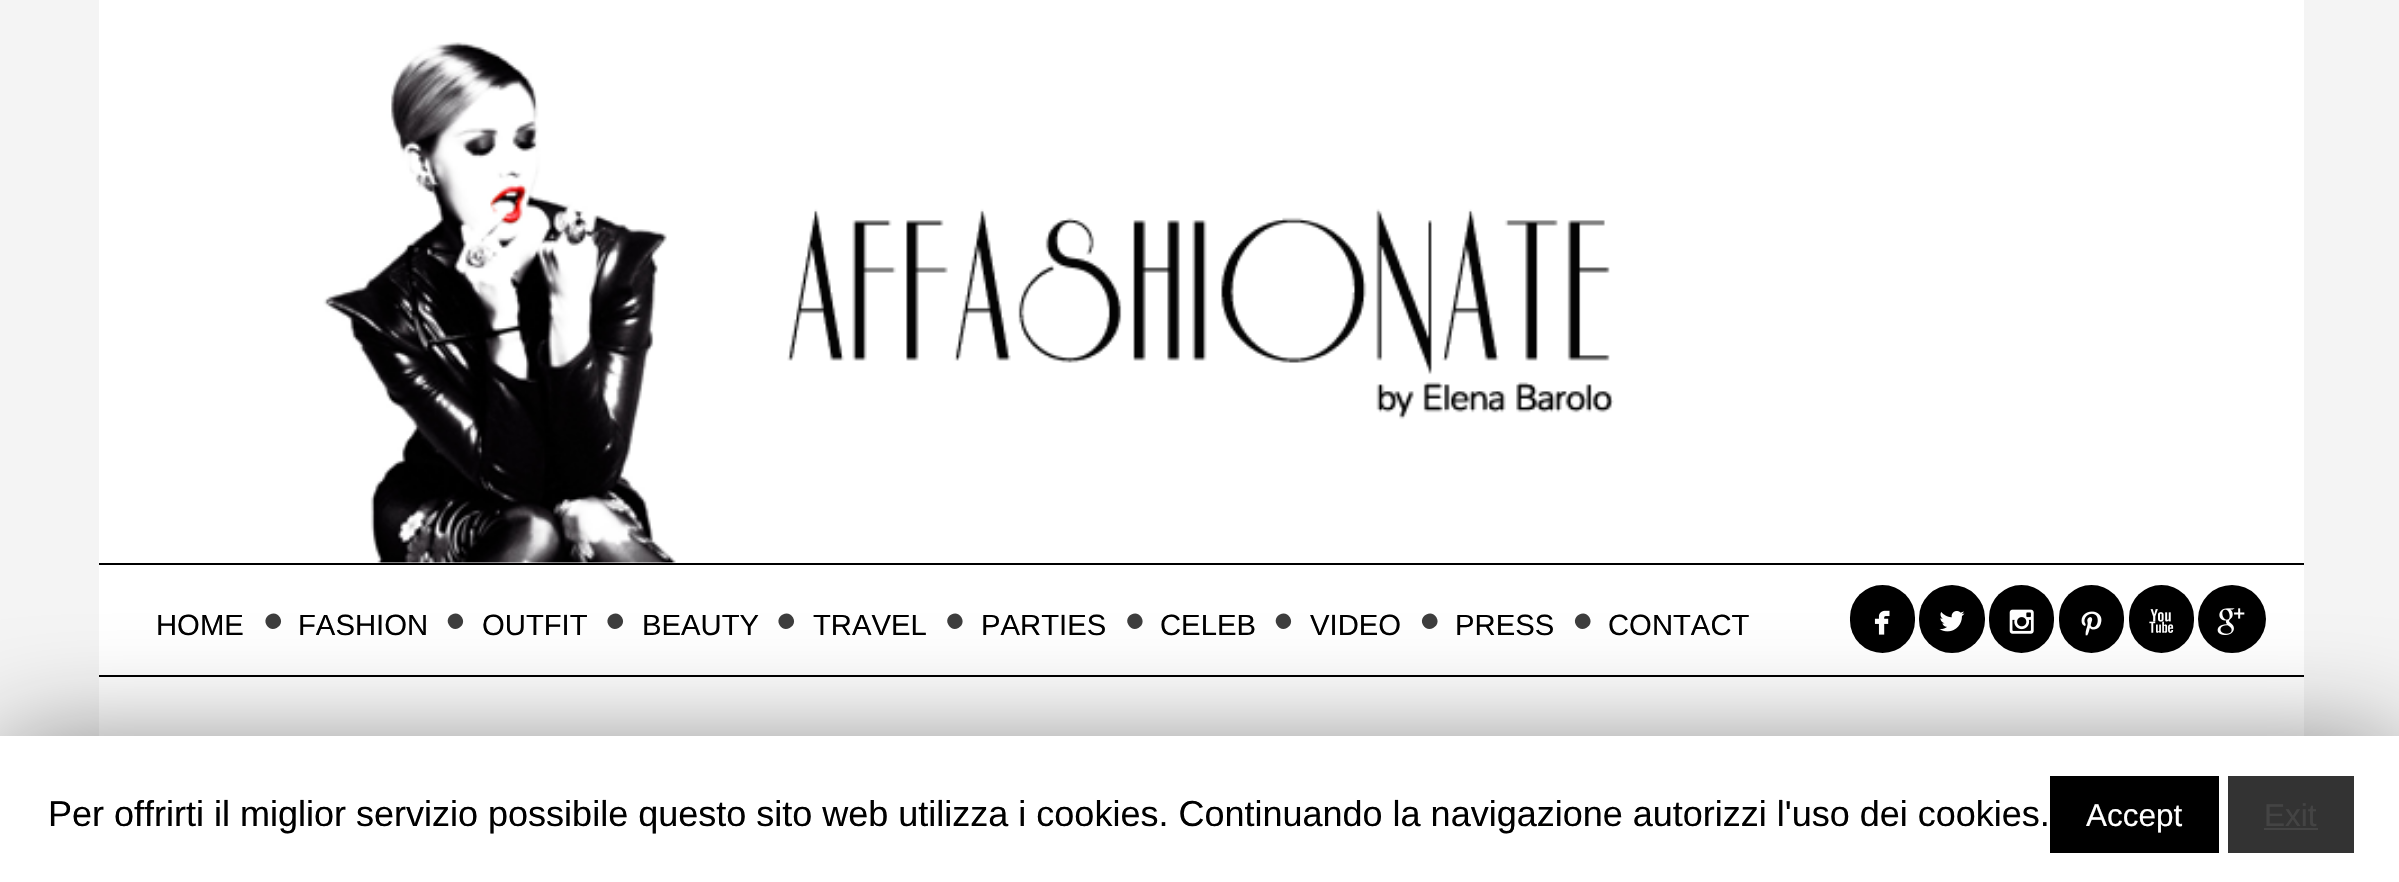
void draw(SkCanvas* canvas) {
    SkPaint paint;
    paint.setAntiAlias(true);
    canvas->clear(0xFFF4F4F4);
    paint.setColor(0xFFFFFFFF);
    canvas->drawRect(SkRect::MakeXYWH(99, 0, 2205, 675), paint);
    canvas->drawImageRect(SkImages::DeferredFromEncodedData(SkData::MakeFromFileName("img1.png")), SkRect::MakeXYWH(323, 42, 1291, 521), SkSamplingOptions());
    paint.setColor(0xFF000000);
    canvas->drawRect(SkRect::MakeXYWH(99, 563, 2205, 2), paint);
    canvas->drawRect(SkRect::MakeXYWH(99, 675, 2205, 2), paint);
    SkFont font1(fontMgr->matchFamilyStyle("Liberation Sans", SkFontStyle::Normal()), 29.25f);
    font1.setSubpixel(true);
    canvas->drawString("HOME", 156, 635, font1, paint);
    paint.setColor(0xFF3D3D3D);
    canvas->drawPath(SkPathBuilder().moveTo(280, 617.5f).cubicTo(285, 626, 271.5f, 634, 266.5f, 625).cubicTo(261.5f, 616.5f, 275, 608.5f, 280, 617.5f).close().detach(), paint);
    paint.setColor(0xFF000000);
    canvas->drawString("FASHION", 298, 635, font1, paint);
    paint.setColor(0xFF3D3D3D);
    canvas->drawPath(SkPathBuilder().moveTo(462, 617.5f).cubicTo(467, 626, 454, 634, 449, 625).cubicTo(443.5f, 616.5f, 457, 608.5f, 462, 617.5f).close().detach(), paint);
    paint.setColor(0xFF000000);
    canvas->drawString("OUTFIT", 482, 635, font1, paint);
    paint.setColor(0xFF3D3D3D);
    canvas->drawPath(SkPathBuilder().moveTo(622, 617.5f).cubicTo(627, 626, 613.5f, 634, 608.5f, 625).cubicTo(603.5f, 616.5f, 617, 608.5f, 622, 617.5f).close().detach(), paint);
    paint.setColor(0xFF000000);
    canvas->drawString("BEAUTY", 642, 635, font1, paint);
    paint.setColor(0xFF3D3D3D);
    canvas->drawPath(SkPathBuilder().moveTo(793, 617.5f).cubicTo(798, 626, 784.5f, 634, 779.5f, 625).cubicTo(774.5f, 616.5f, 788, 608.5f, 793, 617.5f).close().detach(), paint);
    paint.setColor(0xFF000000);
    canvas->drawString("TRAVEL", 813, 635, font1, paint);
    paint.setColor(0xFF3D3D3D);
    canvas->drawPath(SkPathBuilder().moveTo(961.5f, 617.5f).cubicTo(966.5f, 626, 953.5f, 634, 948.5f, 625).cubicTo(943, 616.5f, 956.5f, 608.5f, 961.5f, 617.5f).close().detach(), paint);
    paint.setColor(0xFF000000);
    canvas->drawString("PARTIES", 981, 635, font1, paint);
    paint.setColor(0xFF3D3D3D);
    canvas->drawPath(SkPathBuilder().moveTo(1141.5f, 617.5f).cubicTo(1146.5f, 626, 1133.5f, 634, 1128.5f, 625).cubicTo(1123, 616.5f, 1136.5f, 608.5f, 1141.5f, 617.5f).close().detach(), paint);
    paint.setColor(0xFF000000);
    canvas->drawString("CELEB", 1160, 635, font1, paint);
    paint.setColor(0xFF3D3D3D);
    canvas->drawPath(SkPathBuilder().moveTo(1290, 617.5f).cubicTo(1295, 626, 1282, 634, 1277, 625).cubicTo(1271.5f, 616.5f, 1285, 608.5f, 1290, 617.5f).close().detach(), paint);
    paint.setColor(0xFF000000);
    canvas->drawString("VIDEO", 1310, 635, font1, paint);
    paint.setColor(0xFF3D3D3D);
    canvas->drawPath(SkPathBuilder().moveTo(1436.5f, 617.5f).cubicTo(1441.5f, 626, 1428, 634, 1423, 625).cubicTo(1418, 616.5f, 1431.5f, 608.5f, 1436.5f, 617.5f).close().detach(), paint);
    paint.setColor(0xFF000000);
    canvas->drawString("PRESS", 1455, 635, font1, paint);
    paint.setColor(0xFF3D3D3D);
    canvas->drawPath(SkPathBuilder().moveTo(1589.5f, 617.5f).cubicTo(1594.5f, 626, 1581, 634, 1576, 625).cubicTo(1571, 616.5f, 1584.5f, 608.5f, 1589.5f, 617.5f).close().detach(), paint);
    paint.setColor(0xFF000000);
    canvas->drawString("CONTACT", 1608, 635, font1, paint);
    canvas->drawRoundRect(SkRect::MakeXYWH(1850, 585, 65, 68), 32.5f, 32.5f, paint);
    canvas->drawImageRect(SkImages::DeferredFromEncodedData(SkData::MakeFromFileName("img2.png")), SkRect::MakeXYWH(1874, 610, 16, 25), SkSamplingOptions());
    canvas->drawRoundRect(SkRect::MakeXYWH(1919, 585, 66, 68), 33, 33, paint);
    canvas->drawImageRect(SkImages::DeferredFromEncodedData(SkData::MakeFromFileName("img3.png")), SkRect::MakeXYWH(1939, 611, 26, 21), SkSamplingOptions());
    canvas->drawRoundRect(SkRect::MakeXYWH(1989, 585, 65, 68), 32.5f, 32.5f, paint);
    canvas->drawImageRect(SkImages::DeferredFromEncodedData(SkData::MakeFromFileName("img4.png")), SkRect::MakeXYWH(2009, 609, 25, 25), SkSamplingOptions());
    canvas->drawRoundRect(SkRect::MakeXYWH(2059, 585, 65, 68), 32.5f, 32.5f, paint);
    canvas->drawImageRect(SkImages::DeferredFromEncodedData(SkData::MakeFromFileName("img5.png")), SkRect::MakeXYWH(2081, 611, 21, 25), SkSamplingOptions());
    canvas->drawRoundRect(SkRect::MakeXYWH(2129, 585, 65, 68), 32.5f, 32.5f, paint);
    canvas->drawImageRect(SkImages::DeferredFromEncodedData(SkData::MakeFromFileName("img6.png")), SkRect::MakeXYWH(2149, 609, 25, 24), SkSamplingOptions());
    canvas->drawCircle(2232, 619, 34, paint);
    canvas->drawImageRect(SkImages::DeferredFromEncodedData(SkData::MakeFromFileName("img7.png")), SkRect::MakeXYWH(2217, 608, 28, 27), SkSamplingOptions());
    paint.setColor(0xFFFFFFFF);
    canvas->drawRect(SkRect::MakeXYWH(99, 677, 2205, 59), paint);
    paint.setColor(0x80000000);
    paint.setMaskFilter(SkMaskFilter::MakeBlur(kNormal_SkBlurStyle, 56));
    canvas->drawRect(SkRect::MakeXYWH(0, 747, 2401, 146), paint);
    paint.setMaskFilter(nullptr);
    paint.setColor(0xFFFFFFFF);
    canvas->drawRect(SkRect::MakeXYWH(0, 736, 2399, 146), paint);
    SkFont font2(fontMgr->matchFamilyStyle("Liberation Sans", SkFontStyle::Normal()), 36);
    font2.setSubpixel(true);
    paint.setColor(0xFF000000);
    canvas->drawString("Per offrirti il miglior servizio possibile questo sito web utilizza i cookies. Continuando la navigazione autorizzi l'uso dei cookies.", 48, 826, font2, paint);
    canvas->drawRect(SkRect::MakeXYWH(2050, 776, 169, 77), paint);
    SkFont font3(fontMgr->matchFamilyStyle("Liberation Sans", SkFontStyle::Normal()), 31.5f);
    font3.setSubpixel(true);
    paint.setColor(0xFFFFFFFF);
    canvas->drawString("Accept", 2086, 826, font3, paint);
    paint.setColor(0xFF333333);
    canvas->drawRect(SkRect::MakeXYWH(2228, 776, 126, 77), paint);
    paint.setColor(0xFF444444);
    canvas->drawString("Exit", 2264, 826, font3, paint);
    canvas->drawRect(SkRect::MakeXYWH(2264, 828, 54, 2), paint);
}
